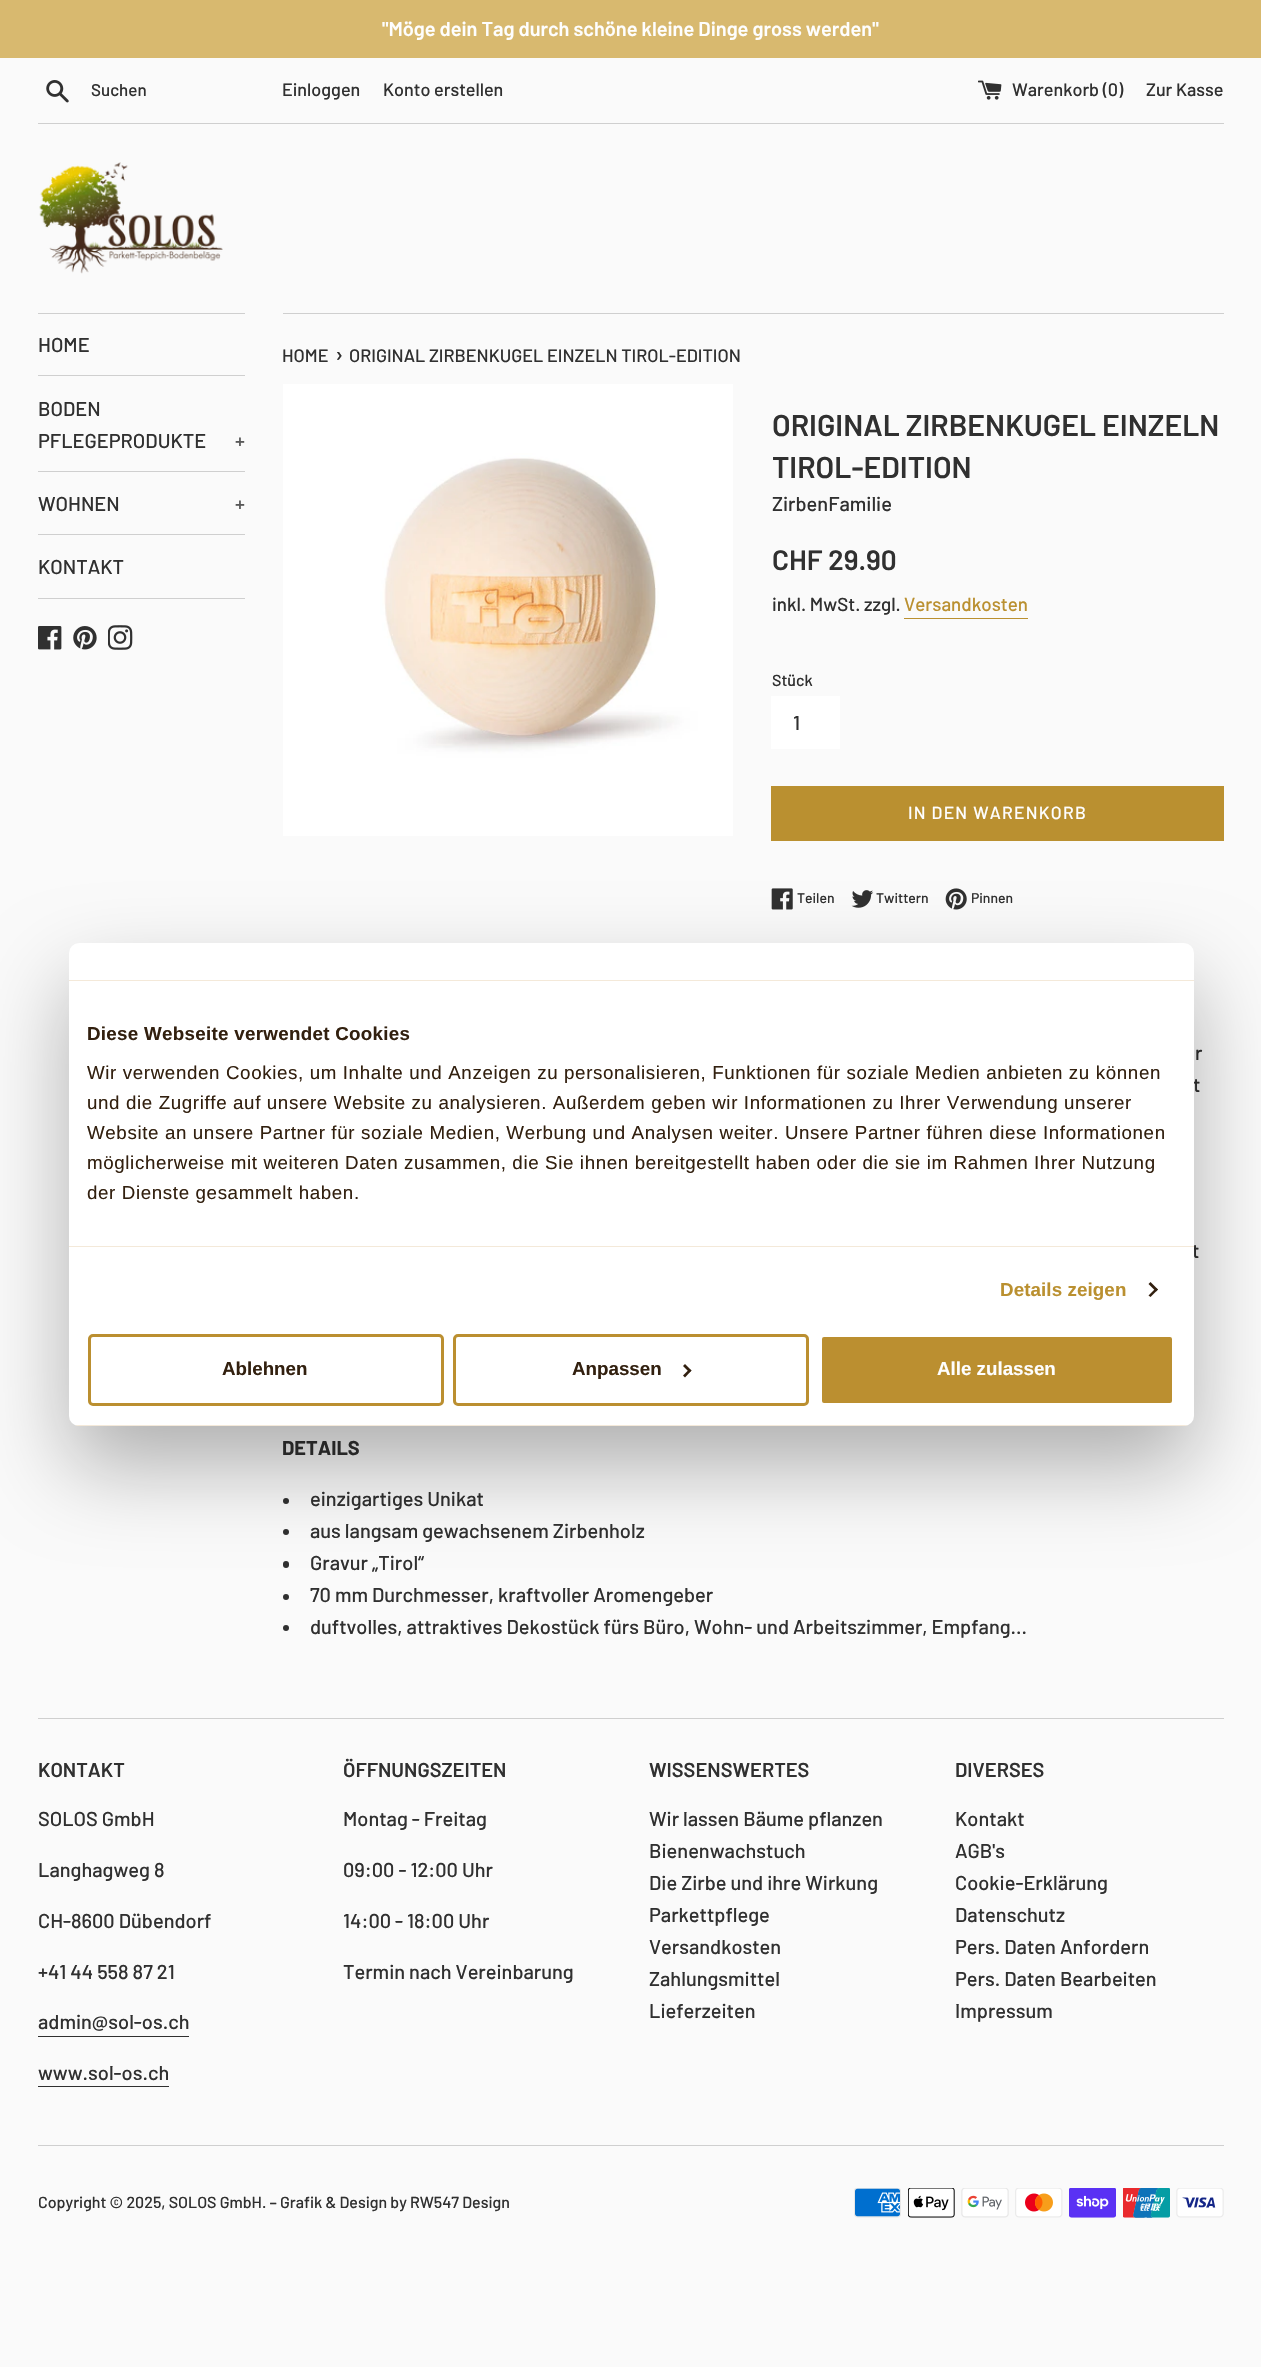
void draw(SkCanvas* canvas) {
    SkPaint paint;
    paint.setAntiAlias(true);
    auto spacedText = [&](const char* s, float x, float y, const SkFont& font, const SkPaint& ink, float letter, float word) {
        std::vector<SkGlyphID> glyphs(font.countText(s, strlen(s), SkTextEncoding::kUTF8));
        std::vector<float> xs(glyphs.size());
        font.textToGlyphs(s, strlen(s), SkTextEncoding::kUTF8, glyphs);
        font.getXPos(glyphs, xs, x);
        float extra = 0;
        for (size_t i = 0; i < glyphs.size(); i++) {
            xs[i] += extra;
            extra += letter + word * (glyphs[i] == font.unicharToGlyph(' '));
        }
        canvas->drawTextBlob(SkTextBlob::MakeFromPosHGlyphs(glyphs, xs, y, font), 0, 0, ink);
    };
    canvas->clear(0xFFFAFAFA);
    paint.setColor(0xFFD8B96F);
    canvas->drawRect(SkRect::MakeXYWH(0, 0, 1261, 58), paint);
    SkFont font1(fontMgr->matchFamilyStyle("Barlow", SkFontStyle(600, SkFontStyle::kNormal_Width, SkFontStyle::kUpright_Slant)), 20);
    font1.setSubpixel(true);
    paint.setColor(0xFFFEFEFE);
    canvas->drawString("\"Möge dein Tag durch schöne kleine Dinge gross werden\"", 382, 36, font1, paint);
    canvas->drawImageRect(SkImages::DeferredFromEncodedData(SkData::MakeFromFileName("img1.png")), SkRect::MakeXYWH(46, 80, 23, 23), SkSamplingOptions());
    SkFont font2(fontMgr->matchFamilyStyle("Barlow", SkFontStyle(500, SkFontStyle::kNormal_Width, SkFontStyle::kUpright_Slant)), 17);
    font2.setSubpixel(true);
    paint.setColor(0xFF303030);
    canvas->drawString("Suchen", 91, 96, font2, paint);
    SkFont font3(fontMgr->matchFamilyStyle("Barlow", SkFontStyle(500, SkFontStyle::kNormal_Width, SkFontStyle::kUpright_Slant)), 18);
    font3.setSubpixel(true);
    canvas->drawString("Einloggen", 282, 96, font3, paint);
    canvas->drawString("Konto erstellen", 383, 96, font3, paint);
    canvas->drawImageRect(SkImages::DeferredFromEncodedData(SkData::MakeFromFileName("img2.png")), SkRect::MakeXYWH(978, 80, 24, 20), SkSamplingOptions());
    canvas->drawString("Warenkorb (0)", 1012, 96, font3, paint);
    canvas->drawString("Zur Kasse", 1146, 96, font3, paint);
    paint.setColor(0xFFCFCFCF);
    canvas->drawRect(SkRect::MakeXYWH(38, 123, 1186, 1), paint);
    canvas->drawImageRect(SkImages::DeferredFromEncodedData(SkData::MakeFromFileName("img3.png")), SkRect::MakeXYWH(39, 162, 184, 112), SkSamplingOptions());
    canvas->drawRect(SkRect::MakeXYWH(38, 313, 207, 1), paint);
    canvas->drawRect(SkRect::MakeXYWH(38, 375, 207, 1), paint);
    SkFont font4(fontMgr->matchFamilyStyle("Barlow", SkFontStyle(500, SkFontStyle::kNormal_Width, SkFontStyle::kUpright_Slant)), 20);
    font4.setSubpixel(true);
    paint.setColor(0xFF303030);
    canvas->drawString("HOME", 38, 352, font4, paint);
    paint.setColor(0xFFCFCFCF);
    canvas->drawRect(SkRect::MakeXYWH(38, 471, 207, 1), paint);
    paint.setColor(0xFF303030);
    canvas->drawString("BODEN", 38, 416, font4, paint);
    canvas->drawString("PFLEGEPRODUKTE", 38, 448, font4, paint);
    paint.setColor(0xFF585858);
    canvas->drawString("+", 235, 448, font4, paint);
    paint.setColor(0xFFCFCFCF);
    canvas->drawRect(SkRect::MakeXYWH(38, 534, 207, 1), paint);
    paint.setColor(0xFF303030);
    canvas->drawString("WOHNEN", 38, 511, font4, paint);
    paint.setColor(0xFF585858);
    canvas->drawString("+", 235, 511, font4, paint);
    paint.setColor(0xFFCFCFCF);
    canvas->drawRect(SkRect::MakeXYWH(38, 598, 207, 1), paint);
    paint.setColor(0xFF303030);
    canvas->drawString("KONTAKT", 38, 574, font4, paint);
    canvas->drawImageRect(SkImages::DeferredFromEncodedData(SkData::MakeFromFileName("img4.png")), SkRect::MakeXYWH(38, 626, 24, 24), SkSamplingOptions());
    canvas->drawImageRect(SkImages::DeferredFromEncodedData(SkData::MakeFromFileName("img5.png")), SkRect::MakeXYWH(73, 626, 24, 24), SkSamplingOptions());
    canvas->drawImageRect(SkImages::DeferredFromEncodedData(SkData::MakeFromFileName("img6.png")), SkRect::MakeXYWH(108, 625, 25, 25), SkSamplingOptions());
    paint.setColor(0xFFCFCFCF);
    canvas->drawRect(SkRect::MakeXYWH(283, 313, 941, 1), paint);
    paint.setColor(0xFF303030);
    canvas->drawString("HOME", 282, 362, font3, paint);
    SkFont font5(fontMgr->matchFamilyStyle("Barlow", SkFontStyle(500, SkFontStyle::kNormal_Width, SkFontStyle::kUpright_Slant)), 22);
    font5.setSubpixel(true);
    canvas->drawString("›", 335, 362, font5, paint);
    canvas->drawString("ORIGINAL ZIRBENKUGEL EINZELN TIROL-EDITION", 349, 362, font3, paint);
    canvas->drawImageRect(SkImages::DeferredFromEncodedData(SkData::MakeFromFileName("img7.png")), SkRect::MakeXYWH(283, 384, 450, 452), SkSamplingOptions());
    SkFont font6(fontMgr->matchFamilyStyle("Barlow", SkFontStyle(600, SkFontStyle::kNormal_Width, SkFontStyle::kUpright_Slant)), 30);
    font6.setSubpixel(true);
    canvas->drawString("ORIGINAL ZIRBENKUGEL EINZELN", 772, 436, font6, paint);
    canvas->drawString("TIROL-EDITION", 772, 478, font6, paint);
    canvas->drawString("ZirbenFamilie", 772, 511, font4, paint);
    SkFont font7(fontMgr->matchFamilyStyle("Barlow", SkFontStyle(600, SkFontStyle::kNormal_Width, SkFontStyle::kUpright_Slant)), 28);
    font7.setSubpixel(true);
    canvas->drawString("CHF 29.90", 772, 570, font7, paint);
    SkFont font8(fontMgr->matchFamilyStyle("Barlow", SkFontStyle(500, SkFontStyle::kNormal_Width, SkFontStyle::kUpright_Slant)), 18.75f);
    font8.setSubpixel(true);
    canvas->drawString("inkl. MwSt. zzgl.", 772, 611, font8, paint);
    paint.setColor(0xFFBA9030);
    canvas->drawString("Versandkosten", 904, 611, font8, paint);
    canvas->drawRect(SkRect::MakeXYWH(904, 618, 124, 1), paint);
    SkFont font9(fontMgr->matchFamilyStyle("Barlow", SkFontStyle(500, SkFontStyle::kNormal_Width, SkFontStyle::kUpright_Slant)), 16);
    font9.setSubpixel(true);
    paint.setColor(0xFF303030);
    canvas->drawString("Stück", 772, 686, font9, paint);
    paint.setColor(0xFFFFFFFF);
    canvas->drawRect(SkRect::MakeXYWH(771, 696, 69, 53), paint);
    paint.setColor(0xFF303030);
    canvas->drawString("1", 793, 730, font4, paint);
    paint.setColor(0xFFBA9030);
    canvas->drawRect(SkRect::MakeXYWH(771, 786, 453, 55), paint);
    SkFont font10(fontMgr->matchFamilyStyle("Barlow", SkFontStyle(500, SkFontStyle::kNormal_Width, SkFontStyle::kUpright_Slant)), 17.5f);
    font10.setSubpixel(true);
    paint.setColor(0xFFFEFEFE);
    spacedText("IN DEN WARENKORB", 908, 819, font10, paint, 1.25f, 0);
    canvas->drawImageRect(SkImages::DeferredFromEncodedData(SkData::MakeFromFileName("img8.png")), SkRect::MakeXYWH(771, 888, 22, 22), SkSamplingOptions());
    SkFont font11(fontMgr->matchFamilyStyle("Barlow", SkFontStyle(500, SkFontStyle::kNormal_Width, SkFontStyle::kUpright_Slant)), 14);
    font11.setSubpixel(true);
    paint.setColor(0xFF303030);
    canvas->drawString("Teilen", 797, 903, font11, paint);
    canvas->drawImageRect(SkImages::DeferredFromEncodedData(SkData::MakeFromFileName("img9.png")), SkRect::MakeXYWH(851, 890, 23, 18), SkSamplingOptions());
    canvas->drawString("Twittern", 876, 903, font11, paint);
    canvas->drawImageRect(SkImages::DeferredFromEncodedData(SkData::MakeFromFileName("img10.png")), SkRect::MakeXYWH(945, 888, 22, 22), SkSamplingOptions());
    canvas->drawString("Pinnen", 971, 903, font11, paint);
    canvas->drawString("r", 1195, 1060, font4, paint);
    canvas->drawString("t", 1193, 1092, font4, paint);
    canvas->drawString("t", 1192, 1258, font4, paint);
    SkFont font12(fontMgr->matchFamilyStyle("Barlow", SkFontStyle::Bold()), 20);
    font12.setSubpixel(true);
    canvas->drawString("DETAILS", 282, 1455, font12, paint);
    canvas->drawCircle(286, 1501, 3, paint);
    canvas->drawString("einzigartiges Unikat", 310, 1506, font4, paint);
    canvas->drawCircle(286, 1532, 3, paint);
    canvas->drawString("aus langsam gewachsenem Zirbenholz", 310, 1538, font4, paint);
    canvas->drawRoundRect(SkRect::MakeXYWH(283, 1561, 6, 7), 3, 3, paint);
    canvas->drawString("Gravur „Tirol“", 310, 1570, font4, paint);
    canvas->drawCircle(286, 1597, 3, paint);
    canvas->drawString("70 mm Durchmesser, kraftvoller Aromengeber", 310, 1602, font4, paint);
    canvas->drawCircle(286, 1628, 3, paint);
    canvas->drawString("duftvolles, attraktives Dekostück fürs Büro, Wohn- und Arbeitszimmer, Empfang...", 310, 1634, font4, paint);
    paint.setColor(0xFFCFCFCF);
    canvas->drawRect(SkRect::MakeXYWH(38, 1718, 1186, 1), paint);
    paint.setColor(0xFF303030);
    canvas->drawString("KONTAKT", 38, 1777, font1, paint);
    canvas->drawString("SOLOS GmbH", 38, 1826, font4, paint);
    canvas->drawString("Langhagweg 8", 38, 1877, font4, paint);
    canvas->drawString("CH-8600 Dübendorf", 38, 1928, font4, paint);
    canvas->drawString("+41 44 558 87 21", 38, 1979, font4, paint);
    canvas->drawString("admin@sol-os.ch", 38, 2029, font4, paint);
    canvas->drawRect(SkRect::MakeXYWH(38, 2036, 151, 1), paint);
    canvas->drawString("www.sol-os.ch", 38, 2080, font4, paint);
    canvas->drawRect(SkRect::MakeXYWH(38, 2086, 131, 1), paint);
    canvas->drawString("ÖFFNUNGSZEITEN", 343, 1777, font1, paint);
    canvas->drawString("Montag - Freitag", 343, 1826, font4, paint);
    canvas->drawString("09:00 - 12:00 Uhr", 343, 1877, font4, paint);
    canvas->drawString("14:00 - 18:00 Uhr", 343, 1928, font4, paint);
    canvas->drawString("Termin nach Vereinbarung", 343, 1979, font4, paint);
    canvas->drawString("WISSENSWERTES", 649, 1777, font1, paint);
    canvas->drawString("Wir lassen Bäume pflanzen", 649, 1826, font4, paint);
    canvas->drawString("Bienenwachstuch", 649, 1858, font4, paint);
    canvas->drawString("Die Zirbe und ihre Wirkung", 649, 1890, font4, paint);
    canvas->drawString("Parkettpflege", 649, 1922, font4, paint);
    canvas->drawString("Versandkosten", 649, 1954, font4, paint);
    canvas->drawString("Zahlungsmittel", 649, 1986, font4, paint);
    canvas->drawString("Lieferzeiten", 649, 2018, font4, paint);
    canvas->drawString("DIVERSES", 955, 1777, font1, paint);
    canvas->drawString("Kontakt", 955, 1826, font4, paint);
    canvas->drawString("AGB's", 955, 1858, font4, paint);
    canvas->drawString("Cookie-Erklärung", 955, 1890, font4, paint);
    canvas->drawString("Datenschutz", 955, 1922, font4, paint);
    canvas->drawString("Pers. Daten Anfordern", 955, 1954, font4, paint);
    canvas->drawString("Pers. Daten Bearbeiten", 955, 1986, font4, paint);
    canvas->drawString("Impressum", 955, 2018, font4, paint);
    paint.setColor(0xFFCFCFCF);
    canvas->drawRect(SkRect::MakeXYWH(38, 2145, 1186, 1), paint);
    paint.setColor(0xFF303030);
    canvas->drawString("Copyright © 2025, SOLOS GmbH. – Grafik & Design by RW547 Design", 38, 2208, font9, paint);
    canvas->drawImageRect(SkImages::DeferredFromEncodedData(SkData::MakeFromFileName("img11.png")), SkRect::MakeXYWH(854, 2188, 47, 30), SkSamplingOptions());
    canvas->drawImageRect(SkImages::DeferredFromEncodedData(SkData::MakeFromFileName("img12.png")), SkRect::MakeXYWH(908, 2188, 47, 30), SkSamplingOptions());
    canvas->drawImageRect(SkImages::DeferredFromEncodedData(SkData::MakeFromFileName("img13.png")), SkRect::MakeXYWH(961, 2188, 48, 30), SkSamplingOptions());
    canvas->drawImageRect(SkImages::DeferredFromEncodedData(SkData::MakeFromFileName("img14.png")), SkRect::MakeXYWH(1015, 2188, 48, 30), SkSamplingOptions());
    canvas->drawImageRect(SkImages::DeferredFromEncodedData(SkData::MakeFromFileName("img15.png")), SkRect::MakeXYWH(1069, 2188, 47, 30), SkSamplingOptions());
    canvas->drawImageRect(SkImages::DeferredFromEncodedData(SkData::MakeFromFileName("img16.png")), SkRect::MakeXYWH(1123, 2188, 47, 30), SkSamplingOptions());
    canvas->drawImageRect(SkImages::DeferredFromEncodedData(SkData::MakeFromFileName("img17.png")), SkRect::MakeXYWH(1176, 2188, 48, 30), SkSamplingOptions());
    paint.setColor(0x4D000000);
    paint.setMaskFilter(SkMaskFilter::MakeBlur(kNormal_SkBlurStyle, 42.5f));
    canvas->drawRoundRect(SkRect::MakeXYWH(69, 983, 1125, 483), 10, 10, paint);
    paint.setMaskFilter(nullptr);
    paint.setColor(0xFFFFFFFF);
    canvas->drawRoundRect(SkRect::MakeXYWH(69, 943, 1125, 483), 10, 10, paint);
    paint.setColor(0xFFF4E9D9);
    canvas->drawRect(SkRect::MakeXYWH(69, 980, 1125, 1), paint);
    canvas->drawRect(SkRect::MakeXYWH(69, 1246, 1125, 1), paint);
    SkFont font13(fontMgr->matchFamilyStyle("Liberation Sans", SkFontStyle::Bold()), 18.75f);
    font13.setSubpixel(true);
    paint.setColor(0xFF32200F);
    spacedText("Diese Webseite verwendet Cookies", 87, 1040, font13, paint, 0.3f, 0);
    SkFont font14(fontMgr->matchFamilyStyle("Liberation Sans", SkFontStyle::Normal()), 18.75f);
    font14.setSubpixel(true);
    spacedText("Wir verwenden Cookies, um Inhalte und Anzeigen zu personalisieren, Funktionen für soziale Medien anbieten zu können", 87, 1079, font14, paint, 0.62f, 0);
    spacedText("und die Zugriffe auf unsere Website zu analysieren. Außerdem geben wir Informationen zu Ihrer Verwendung unserer", 87, 1109, font14, paint, 0.62f, 0);
    spacedText("Website an unsere Partner für soziale Medien, Werbung und Analysen weiter. Unsere Partner führen diese Informationen", 87, 1139, font14, paint, 0.62f, 0);
    spacedText("möglicherweise mit weiteren Daten zusammen, die Sie ihnen bereitgestellt haben oder die sie im Rahmen Ihrer Nutzung", 87, 1169, font14, paint, 0.62f, 0);
    spacedText("der Dienste gesammelt haben.", 87, 1199, font14, paint, 0.62f, 0);
    paint.setColor(0xFFBA9030);
    spacedText("Details zeigen", 1000, 1296, font13, paint, 0.1f, 0);
    paint.setColor(0xFF32200F);
    canvas->drawPath(SkPathBuilder().moveTo(1150.5f, 1282).lineTo(1158, 1289.5f).lineTo(1156, 1291.5f).lineTo(1148.5f, 1284).close().detach(), paint);
    canvas->drawPath(SkPathBuilder().moveTo(1156, 1288).lineTo(1158, 1289.5f).lineTo(1150.5f, 1297).lineTo(1148.5f, 1295.5f).close().detach(), paint);
    canvas->save();
    canvas->clipPath(SkPathBuilder().moveTo(79, 943).lineTo(1184, 943).cubicTo(1189.5f, 943, 1194, 947.5f, 1194, 953).lineTo(1194, 1416).cubicTo(1194, 1421.5f, 1189.5f, 1426, 1184, 1426).lineTo(79, 1426).cubicTo(73.5f, 1426, 69, 1421.5f, 69, 1416).lineTo(69, 953).cubicTo(69, 947.5f, 73.5f, 943, 79, 943).close().detach(), true);
    paint.setColor(0xFFF4E9D9);
    canvas->drawRect(SkRect::MakeXYWH(69, 1425, 1125, 1), paint);
    canvas->restore();
    paint.setStyle(SkPaint::kStroke_Style);
    paint.setStrokeWidth(3);
    paint.setColor(0xFFBB8F30);
    canvas->drawRoundRect(SkRect::MakeXYWH(89.5f, 1335.5f, 353, 69), 3.5f, 3.5f, paint);
    paint.setStyle(SkPaint::kFill_Style);
    paint.setColor(0xFF32200F);
    canvas->drawString("Ablehnen", 222, 1375, font13, paint);
    paint.setStyle(SkPaint::kStroke_Style);
    paint.setColor(0xFFBB8F30);
    canvas->drawRoundRect(SkRect::MakeXYWH(454.5f, 1335.5f, 353, 69), 3.5f, 3.5f, paint);
    paint.setStyle(SkPaint::kFill_Style);
    paint.setColor(0xFF32200F);
    canvas->drawString("Anpassen", 572, 1375, font13, paint);
    canvas->drawPath(SkPathBuilder().moveTo(685, 1364).lineTo(691.5f, 1370.5f).lineTo(689.5f, 1372.5f).lineTo(683, 1366).close().detach(), paint);
    canvas->drawPath(SkPathBuilder().moveTo(689.5f, 1369).lineTo(691.5f, 1370.5f).lineTo(685, 1377.5f).lineTo(683, 1375.5f).close().detach(), paint);
    paint.setColor(0xFFBB8F30);
    canvas->drawRoundRect(SkRect::MakeXYWH(820.5f, 1335.5f, 353, 69), 3.5f, 3.5f, paint);
    paint.setStyle(SkPaint::kStroke_Style);
    paint.setColor(0xFFFFFFFF);
    canvas->drawRoundRect(SkRect::MakeXYWH(820.5f, 1335.5f, 353, 69), 3.5f, 3.5f, paint);
    paint.setStyle(SkPaint::kFill_Style);
    paint.setColor(0xFFFEFEFE);
    canvas->drawString("Alle zulassen", 937, 1375, font13, paint);
}
